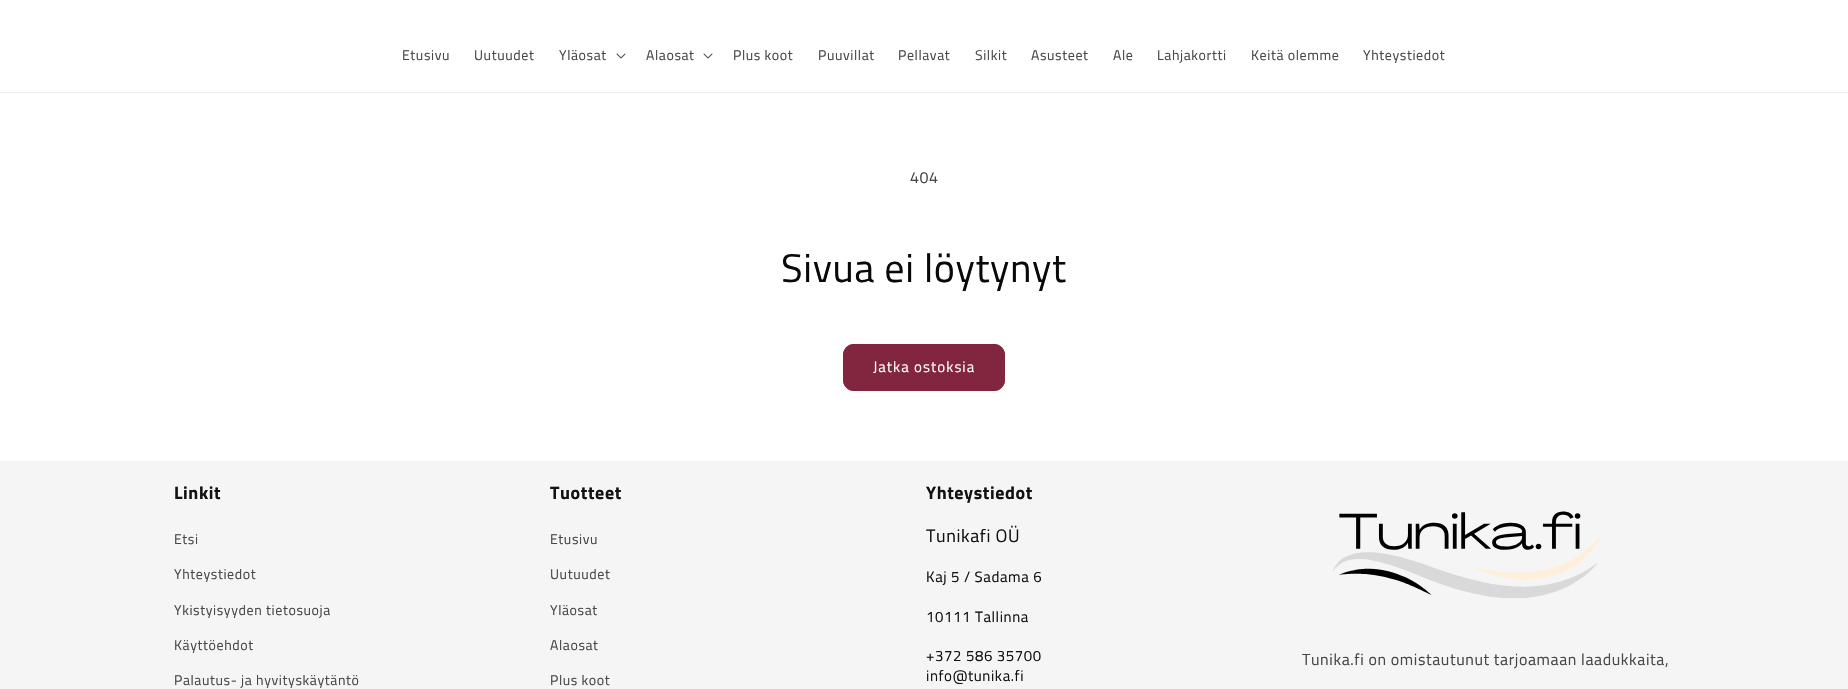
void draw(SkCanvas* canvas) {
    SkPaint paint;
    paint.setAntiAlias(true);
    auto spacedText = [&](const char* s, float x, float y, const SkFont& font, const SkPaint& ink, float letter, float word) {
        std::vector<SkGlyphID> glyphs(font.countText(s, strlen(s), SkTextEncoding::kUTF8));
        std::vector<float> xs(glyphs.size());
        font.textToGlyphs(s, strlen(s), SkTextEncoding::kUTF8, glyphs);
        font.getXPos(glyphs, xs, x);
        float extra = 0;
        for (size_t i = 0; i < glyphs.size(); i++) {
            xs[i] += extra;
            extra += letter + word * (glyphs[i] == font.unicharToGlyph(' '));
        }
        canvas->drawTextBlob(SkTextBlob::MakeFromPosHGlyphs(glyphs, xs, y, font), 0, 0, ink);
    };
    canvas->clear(0xFFFFFFFF);
    paint.setColor(0xFFEBEBEB);
    canvas->drawRect(SkRect::MakeXYWH(0, 92, 1848, 1), paint);
    SkFont font1(fontMgr->matchFamilyStyle("Titillium Web", SkFontStyle::Normal()), 14);
    font1.setSubpixel(true);
    paint.setColor(0xFF474747);
    spacedText("Etusivu", 402, 60, font1, paint, 0.6f, 0);
    spacedText("Uutuudet", 474, 60, font1, paint, 0.6f, 0);
    spacedText("Yläosat", 559, 60, font1, paint, 0.6f, 0);
    canvas->drawImageRect(SkImages::DeferredFromEncodedData(SkData::MakeFromFileName("img1.png")), SkRect::MakeXYWH(616, 53, 10, 6), SkSamplingOptions());
    spacedText("Alaosat", 646, 60, font1, paint, 0.6f, 0);
    canvas->drawImageRect(SkImages::DeferredFromEncodedData(SkData::MakeFromFileName("img1.png")), SkRect::MakeXYWH(703, 53, 10, 6), SkSamplingOptions());
    spacedText("Plus koot", 733, 60, font1, paint, 0.6f, 0);
    spacedText("Puuvillat", 818, 60, font1, paint, 0.6f, 0);
    spacedText("Pellavat", 898, 60, font1, paint, 0.6f, 0);
    spacedText("Silkit", 975, 60, font1, paint, 0.6f, 0);
    spacedText("Asusteet", 1031, 60, font1, paint, 0.6f, 0);
    spacedText("Ale", 1113, 60, font1, paint, 0.6f, 0);
    spacedText("Lahjakortti", 1157, 60, font1, paint, 0.6f, 0);
    spacedText("Keitä olemme", 1251, 60, font1, paint, 0.6f, 0);
    spacedText("Yhteystiedot", 1363, 60, font1, paint, 0.6f, 0);
    SkFont font2(fontMgr->matchFamilyStyle("Titillium Web", SkFontStyle::Normal()), 16);
    font2.setSubpixel(true);
    spacedText("404", 910, 183, font2, paint, 0.6f, 0);
    SkFont font3(fontMgr->matchFamilyStyle("Titillium Web", SkFontStyle::Normal()), 40);
    font3.setSubpixel(true);
    paint.setColor(0xFF090909);
    spacedText("Sivua ei löytynyt", 781, 282, font3, paint, 0.6f, 0);
    paint.setColor(0xFF82253E);
    canvas->drawRoundRect(SkRect::MakeXYWH(843, 344, 162, 47), 11, 11, paint);
    paint.setStyle(SkPaint::kStroke_Style);
    paint.setStrokeWidth(1);
    canvas->drawRoundRect(SkRect::MakeXYWH(843.5f, 344.5f, 161, 46), 10.5f, 10.5f, paint);
    SkFont font4(fontMgr->matchFamilyStyle("Titillium Web", SkFontStyle::Normal()), 15);
    font4.setSubpixel(true);
    paint.setStyle(SkPaint::kFill_Style);
    paint.setColor(0xFFFFFFFF);
    spacedText("Jatka ostoksia", 873, 372, font4, paint, 1, 0);
    paint.setColor(0xFFF5F5F5);
    canvas->drawRect(SkRect::MakeXYWH(0, 461, 1848, 228), paint);
    SkFont font5(fontMgr->matchFamilyStyle("Titillium Web", SkFontStyle::Bold()), 18);
    font5.setSubpixel(true);
    paint.setColor(0xFF121212);
    spacedText("Linkit", 174, 499, font5, paint, 0.6f, 0);
    paint.setColor(0xFF474747);
    spacedText("Etsi", 174, 544, font1, paint, 0.6f, 0);
    spacedText("Yhteystiedot", 174, 579, font1, paint, 0.6f, 0);
    spacedText("Ykistyisyyden tietosuoja", 174, 615, font1, paint, 0.6f, 0);
    spacedText("Käyttöehdot", 174, 650, font1, paint, 0.6f, 0);
    spacedText("Palautus- ja hyvityskäytäntö", 174, 685, font1, paint, 0.6f, 0);
    paint.setColor(0xFF121212);
    spacedText("Tuotteet", 550, 499, font5, paint, 0.6f, 0);
    paint.setColor(0xFF474747);
    spacedText("Etusivu", 550, 544, font1, paint, 0.6f, 0);
    spacedText("Uutuudet", 550, 579, font1, paint, 0.6f, 0);
    spacedText("Yläosat", 550, 615, font1, paint, 0.6f, 0);
    spacedText("Alaosat", 550, 650, font1, paint, 0.6f, 0);
    spacedText("Plus koot", 550, 685, font1, paint, 0.6f, 0);
    paint.setColor(0xFF121212);
    spacedText("Yhteystiedot", 926, 499, font5, paint, 0.6f, 0);
    SkFont font6(fontMgr->matchFamilyStyle("Titillium Web", SkFontStyle::Normal()), 18);
    font6.setSubpixel(true);
    spacedText("Tunikafi OÜ", 926, 542, font6, paint, 0.6f, 0);
    spacedText("Kaj 5 / Sadama 6", 926, 582, font4, paint, 0.6f, 0);
    spacedText("10111 Tallinna", 926, 622, font4, paint, 0.6f, 0);
    spacedText("+372 586 35700", 926, 661, font4, paint, 0.6f, 0);
    spacedText("info@tunika.fi", 926, 681, font4, paint, 0.6f, 0);
    canvas->drawImageRect(SkImages::DeferredFromEncodedData(SkData::MakeFromFileName("img2.png")), SkRect::MakeXYWH(1332, 511, 270, 87), SkSamplingOptions());
    paint.setColor(0xFF474747);
    spacedText("Tunika.fi on omistautunut tarjoamaan laadukkaita,", 1302, 665, font2, paint, 0.6f, 0);
}
